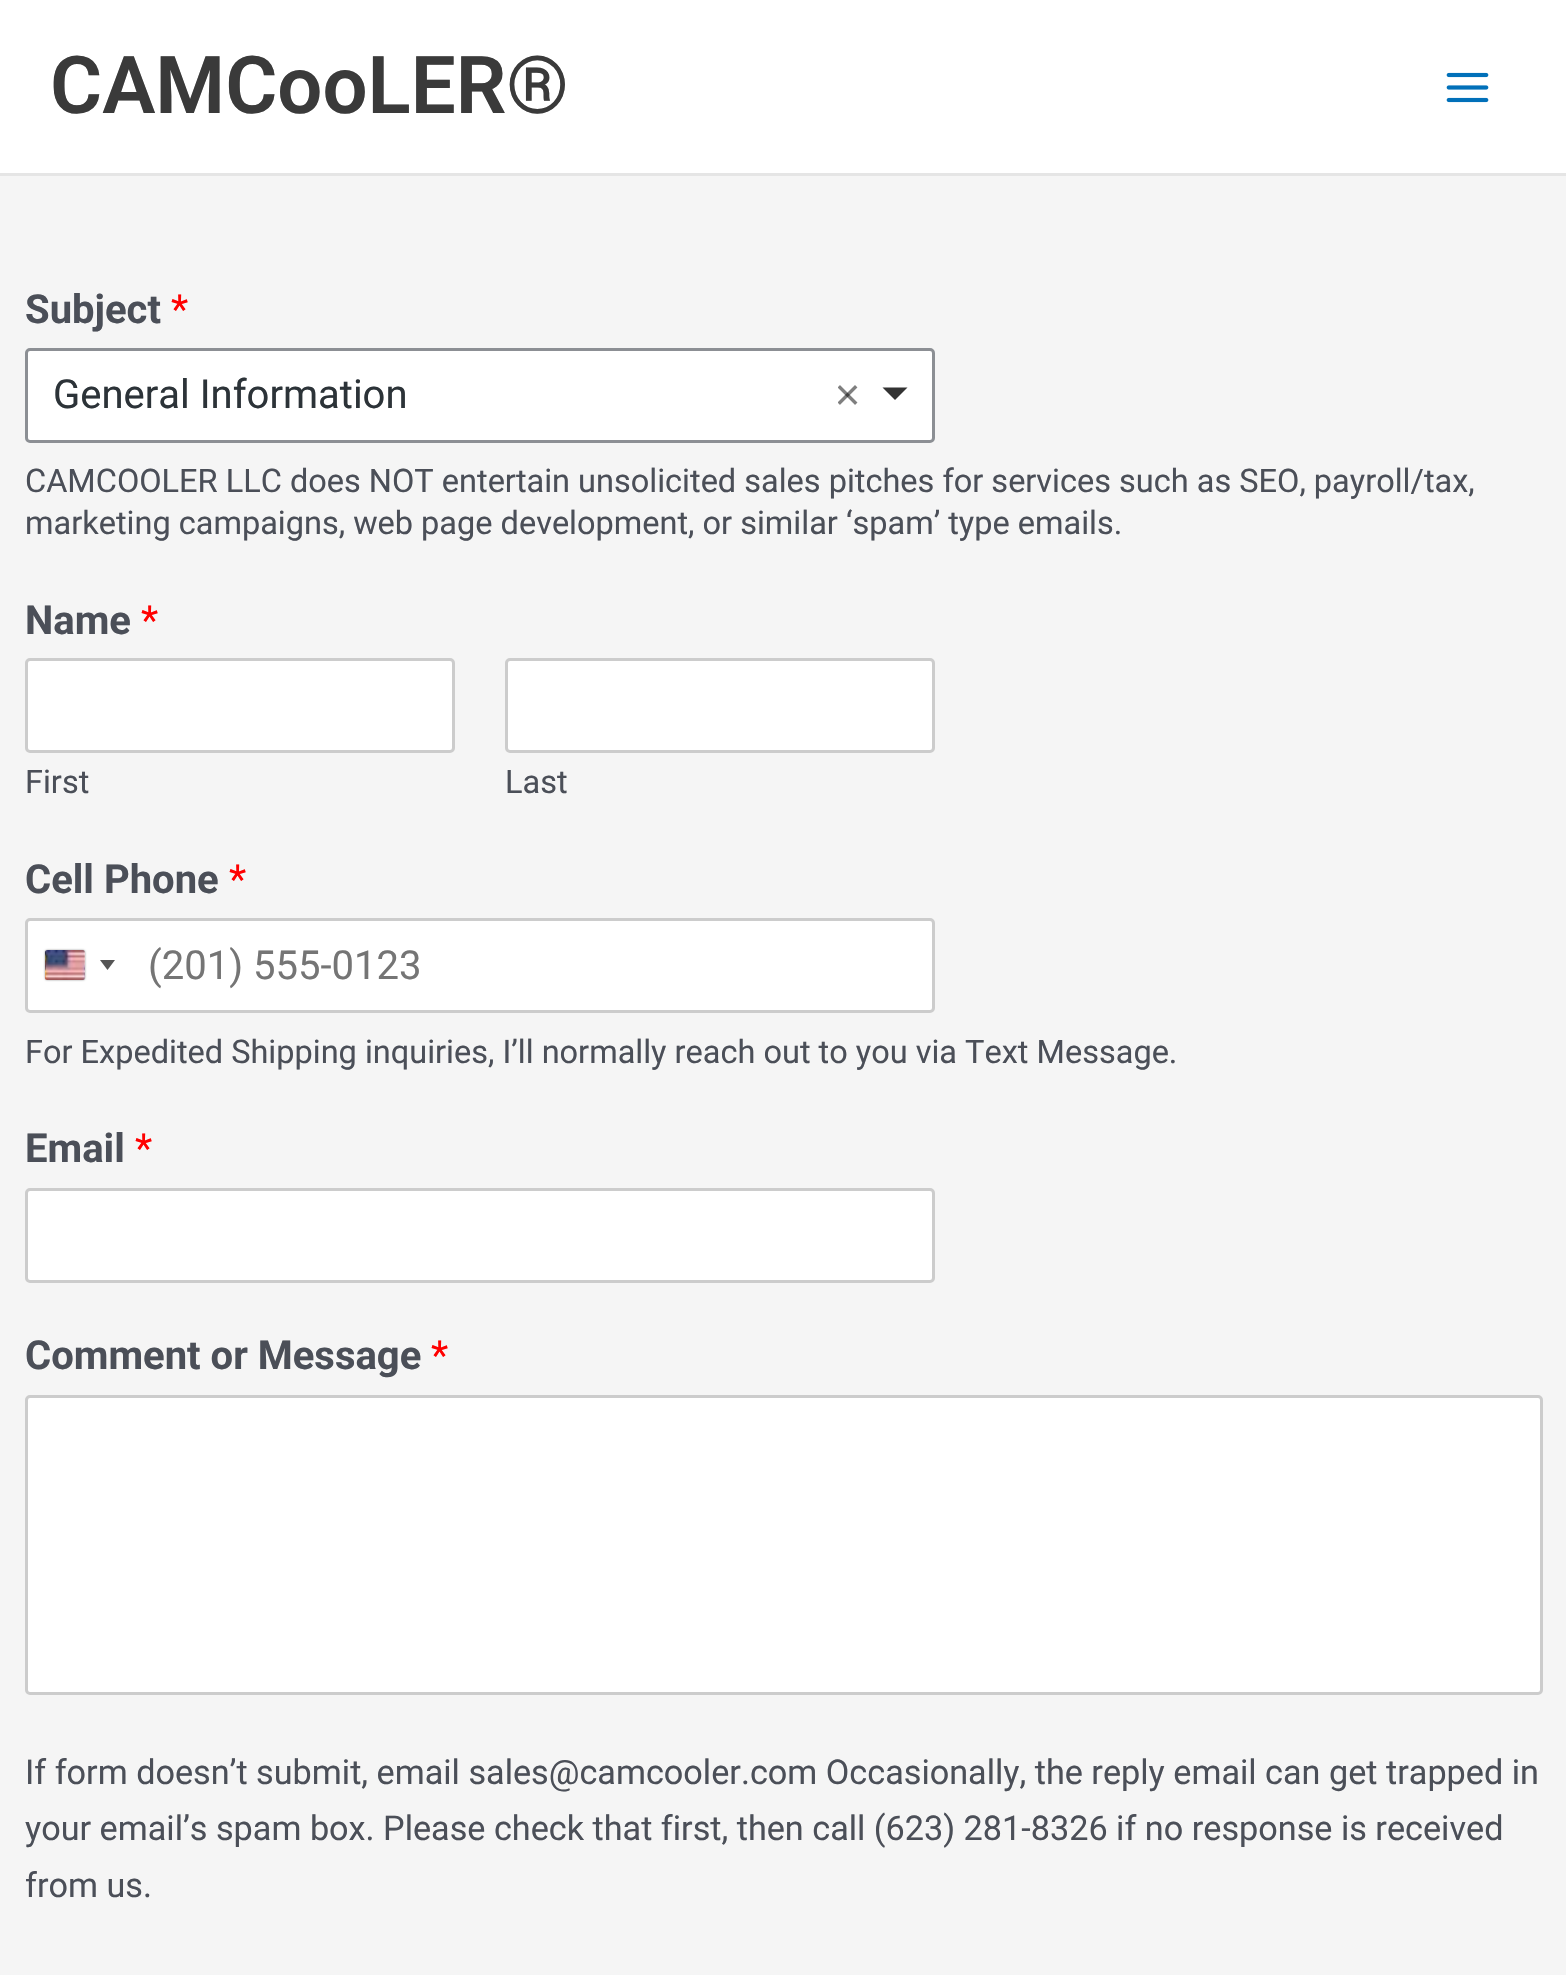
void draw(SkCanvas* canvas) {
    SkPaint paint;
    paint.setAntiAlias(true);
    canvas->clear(0xFFF5F5F5);
    paint.setColor(0xFFFFFFFF);
    canvas->drawRect(SkRect::MakeXYWH(0, 0, 1566, 173), paint);
    paint.setColor(0xFFE5E5E5);
    canvas->drawRect(SkRect::MakeXYWH(0, 173, 1566, 3), paint);
    SkFont font1(fontMgr->matchFamilyStyle("Roboto", SkFontStyle(600, SkFontStyle::kNormal_Width, SkFontStyle::kUpright_Slant)), 79.75f);
    font1.setSubpixel(true);
    paint.setColor(0xFF3A3A3A);
    canvas->drawString("CAMCooLER®", 50, 113, font1, paint);
    canvas->drawImageRect(SkImages::DeferredFromEncodedData(SkData::MakeFromFileName("img1.png")), SkRect::MakeXYWH(1446, 72, 43, 31), SkSamplingOptions());
    SkFont font2(fontMgr->matchFamilyStyle("Roboto", SkFontStyle::Bold()), 40);
    font2.setSubpixel(true);
    paint.setColor(0xFF4B4F58);
    canvas->drawString("Subject", 25, 323, font2, paint);
    SkFont font3(fontMgr->matchFamilyStyle("Roboto", SkFontStyle::Normal()), 40);
    font3.setSubpixel(true);
    paint.setColor(0xFFFF0000);
    canvas->drawString("*", 171, 323, font3, paint);
    paint.setColor(0xFFFFFFFF);
    canvas->drawRoundRect(SkRect::MakeXYWH(26.5f, 349.5f, 907, 92), 3.5f, 3.5f, paint);
    paint.setStyle(SkPaint::kStroke_Style);
    paint.setStrokeWidth(3);
    paint.setColor(0xFF8C8F94);
    canvas->drawRoundRect(SkRect::MakeXYWH(26.5f, 349.5f, 907, 92), 3.5f, 3.5f, paint);
    paint.setStyle(SkPaint::kFill_Style);
    paint.setColor(0xFF2C3338);
    canvas->drawString("General Information", 53, 408, font3, paint);
    canvas->drawImageRect(SkImages::DeferredFromEncodedData(SkData::MakeFromFileName("img2.png")), SkRect::MakeXYWH(838, 385, 20, 20), SkSamplingOptions());
    paint.setColor(0xFF333333);
    canvas->drawPath(SkPathBuilder().moveTo(882.5f, 387.5f).lineTo(907.5f, 387.5f).lineTo(895, 400).close().detach(), paint);
    SkFont font4(fontMgr->matchFamilyStyle("Roboto", SkFontStyle::Normal()), 32.5f);
    font4.setSubpixel(true);
    paint.setColor(0xFF4B4F58);
    canvas->drawString("CAMCOOLER LLC does NOT entertain unsolicited sales pitches for services such as SEO, payroll/tax,", 25, 492, font4, paint);
    canvas->drawString("marketing campaigns, web page development, or similar ‘spam’ type emails.", 25, 534, font4, paint);
    canvas->drawString("Name", 25, 634, font2, paint);
    paint.setColor(0xFFFF0000);
    canvas->drawString("*", 141, 634, font3, paint);
    paint.setColor(0xFFFFFFFF);
    canvas->drawRoundRect(SkRect::MakeXYWH(26.5f, 659.5f, 427, 92), 3.5f, 3.5f, paint);
    paint.setStyle(SkPaint::kStroke_Style);
    paint.setColor(0xFFCCCCCC);
    canvas->drawRoundRect(SkRect::MakeXYWH(26.5f, 659.5f, 427, 92), 3.5f, 3.5f, paint);
    paint.setStyle(SkPaint::kFill_Style);
    paint.setColor(0xFF4B4F58);
    canvas->drawString("First", 25, 793, font4, paint);
    paint.setColor(0xFFFFFFFF);
    canvas->drawRoundRect(SkRect::MakeXYWH(506.5f, 659.5f, 427, 92), 3.5f, 3.5f, paint);
    paint.setStyle(SkPaint::kStroke_Style);
    paint.setColor(0xFFCCCCCC);
    canvas->drawRoundRect(SkRect::MakeXYWH(506.5f, 659.5f, 427, 92), 3.5f, 3.5f, paint);
    paint.setStyle(SkPaint::kFill_Style);
    paint.setColor(0xFF4B4F58);
    canvas->drawString("Last", 505, 793, font4, paint);
    canvas->drawString("Cell Phone", 25, 893, font2, paint);
    paint.setColor(0xFFFF0000);
    canvas->drawString("*", 229, 893, font3, paint);
    paint.setColor(0xFFFFFFFF);
    canvas->drawRoundRect(SkRect::MakeXYWH(26.5f, 919.5f, 907, 92), 3.5f, 3.5f, paint);
    paint.setStyle(SkPaint::kStroke_Style);
    paint.setColor(0xFFCCCCCC);
    canvas->drawRoundRect(SkRect::MakeXYWH(26.5f, 919.5f, 907, 92), 3.5f, 3.5f, paint);
    paint.setStyle(SkPaint::kFill_Style);
    paint.setColor(0xFF888888);
    paint.setMaskFilter(SkMaskFilter::MakeBlur(kNormal_SkBlurStyle, 1));
    canvas->drawRoundRect(SkRect::MakeXYWH(45, 950, 40, 30), 2.5f, 2.5f, paint);
    paint.setMaskFilter(nullptr);
    canvas->drawImageRect(SkImages::DeferredFromEncodedData(SkData::MakeFromFileName("img3.png")), SkRect::MakeXYWH(45, 950, 40, 30), SkSamplingOptions());
    paint.setColor(0xFF555555);
    canvas->drawPath(SkPathBuilder().moveTo(100, 960).lineTo(115, 960).lineTo(107.5f, 970).close().detach(), paint);
    paint.setColor(0xFF757575);
    canvas->drawString("(201) 555-0123", 148, 979, font3, paint);
    paint.setColor(0xFF4B4F58);
    canvas->drawString("For Expedited Shipping inquiries, I’ll normally reach out to you via Text Message.", 25, 1063, font4, paint);
    canvas->drawString("Email", 25, 1162, font2, paint);
    paint.setColor(0xFFFF0000);
    canvas->drawString("*", 135, 1162, font3, paint);
    paint.setColor(0xFFFFFFFF);
    canvas->drawRoundRect(SkRect::MakeXYWH(26.5f, 1189.5f, 907, 92), 3.5f, 3.5f, paint);
    paint.setStyle(SkPaint::kStroke_Style);
    paint.setColor(0xFFCCCCCC);
    canvas->drawRoundRect(SkRect::MakeXYWH(26.5f, 1189.5f, 907, 92), 3.5f, 3.5f, paint);
    paint.setStyle(SkPaint::kFill_Style);
    paint.setColor(0xFF4B4F58);
    canvas->drawString("Comment or Message", 25, 1369, font2, paint);
    paint.setColor(0xFFFF0000);
    canvas->drawString("*", 431, 1369, font3, paint);
    paint.setColor(0xFFFFFFFF);
    canvas->drawRoundRect(SkRect::MakeXYWH(26.5f, 1396.5f, 1515, 297), 3.5f, 3.5f, paint);
    paint.setStyle(SkPaint::kStroke_Style);
    paint.setColor(0xFFCCCCCC);
    canvas->drawRoundRect(SkRect::MakeXYWH(26.5f, 1396.5f, 1515, 297), 3.5f, 3.5f, paint);
    SkFont font5(fontMgr->matchFamilyStyle("Roboto", SkFontStyle::Normal()), 34.2f);
    font5.setSubpixel(true);
    paint.setStyle(SkPaint::kFill_Style);
    paint.setColor(0xFF4B4F58);
    canvas->drawString("If form doesn’t submit, email sales@camcooler.com Occasionally, the reply email can get trapped in", 25, 1784, font5, paint);
    canvas->drawString("your email’s spam box. Please check that first, then call (623) 281-8326 if no response is received", 25, 1840, font5, paint);
    canvas->drawString("from us.", 25, 1897, font5, paint);
}
